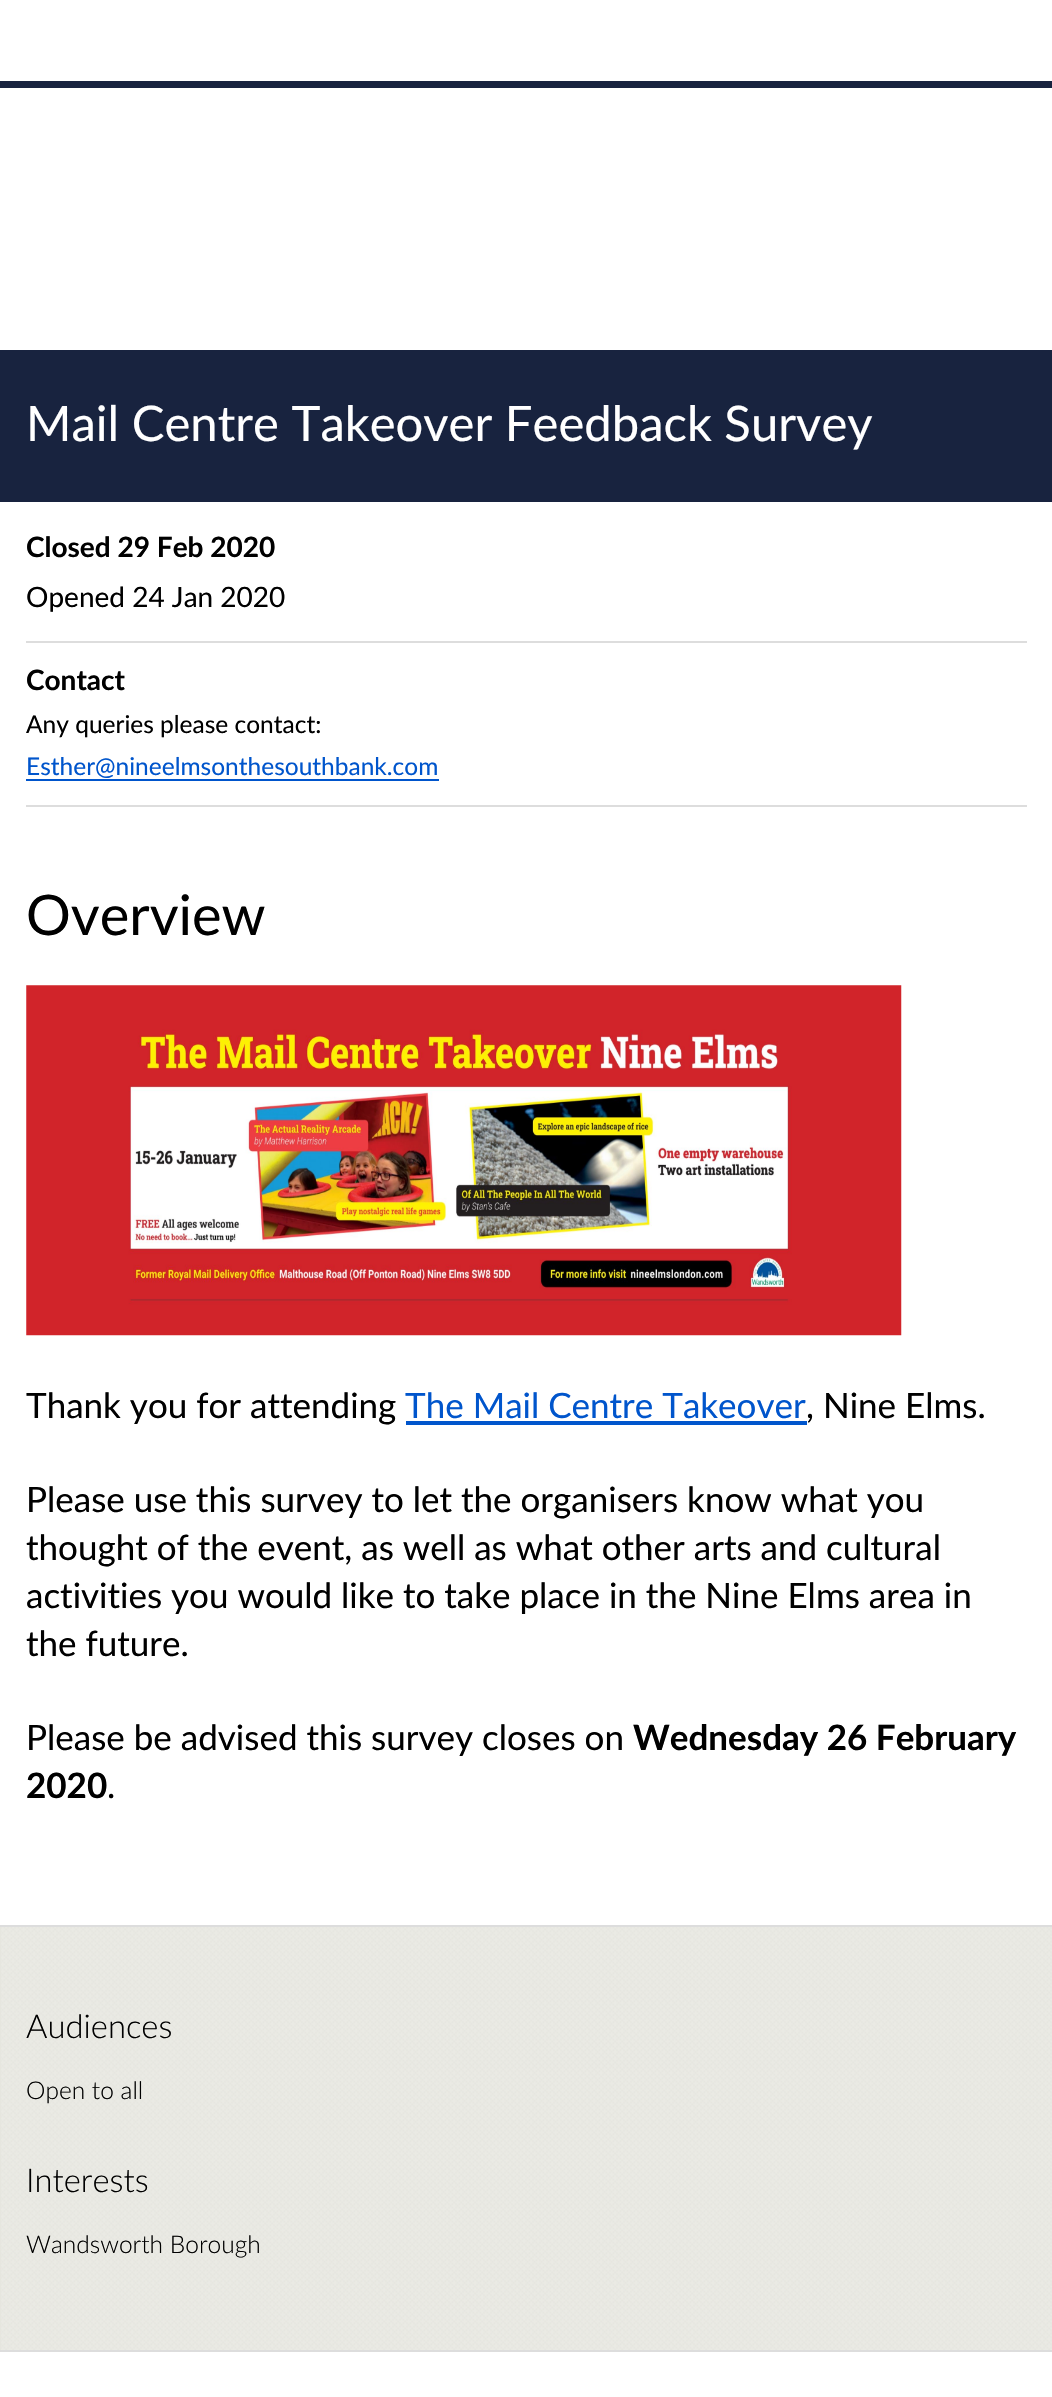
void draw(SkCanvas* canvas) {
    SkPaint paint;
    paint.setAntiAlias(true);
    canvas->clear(0xFFFFFFFF);
    paint.setColor(0xFF18233F);
    canvas->drawRect(SkRect::MakeXYWH(0, 81, 1052, 7), paint);
    canvas->drawRect(SkRect::MakeXYWH(0, 350, 1052, 152), paint);
    SkFont font1(fontMgr->matchFamilyStyle("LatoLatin", SkFontStyle::Normal()), 49);
    font1.setSubpixel(true);
    paint.setColor(0xFFFFFFFF);
    canvas->drawString("Mail Centre Takeover Feedback Survey", 26, 441, font1, paint);
    paint.setColor(0xFFDDDDDD);
    canvas->drawRect(SkRect::MakeXYWH(26, 641, 1001, 2), paint);
    SkFont font2(fontMgr->matchFamilyStyle("LatoLatin", SkFontStyle::Bold()), 28);
    font2.setSubpixel(true);
    paint.setColor(0xFF000000);
    canvas->drawString("Closed 29 Feb 2020", 26, 557, font2, paint);
    SkFont font3(fontMgr->matchFamilyStyle("LatoLatin", SkFontStyle::Normal()), 28);
    font3.setSubpixel(true);
    canvas->drawString("Opened 24 Jan 2020", 26, 607, font3, paint);
    paint.setColor(0xFFDDDDDD);
    canvas->drawRect(SkRect::MakeXYWH(26, 805, 1001, 2), paint);
    paint.setColor(0xFF000000);
    canvas->drawString("Contact", 26, 690, font2, paint);
    SkFont font4(fontMgr->matchFamilyStyle("LatoLatin", SkFontStyle::Normal()), 24.5f);
    font4.setSubpixel(true);
    canvas->drawString("Any queries please contact:", 26, 733, font4, paint);
    paint.setColor(0xFF0055CC);
    canvas->drawString("Esther@nineelmsonthesouthbank.com", 26, 775, font4, paint);
    canvas->drawRect(SkRect::MakeXYWH(26, 779, 413, 2), paint);
    SkFont font5(fontMgr->matchFamilyStyle("LatoLatin", SkFontStyle::Normal()), 56);
    font5.setSubpixel(true);
    paint.setColor(0xFF000000);
    canvas->drawString("Overview", 26, 935, font5, paint);
    canvas->drawImageRect(SkImages::DeferredFromEncodedData(SkData::MakeFromFileName("img1.png")), SkRect::MakeXYWH(26, 985, 876, 351), SkSamplingOptions());
    SkFont font6(fontMgr->matchFamilyStyle("LatoLatin", SkFontStyle::Normal()), 35);
    font6.setSubpixel(true);
    canvas->drawString("Thank you for attending", 26, 1418, font6, paint);
    paint.setColor(0xFF0055CC);
    canvas->drawString("The Mail Centre Takeover", 405, 1418, font6, paint);
    paint.setColor(0xFF000000);
    canvas->drawString(", Nine Elms.", 806, 1418, font6, paint);
    paint.setColor(0xFF0055CC);
    canvas->drawRect(SkRect::MakeXYWH(406, 1421, 401, 4), paint);
    paint.setColor(0xFF000000);
    canvas->drawString("Please use this survey to let the organisers know what you", 26, 1512, font6, paint);
    canvas->drawString("thought of the event, as well as what other arts and cultural", 26, 1560, font6, paint);
    canvas->drawString("activities you would like to take place in the Nine Elms area in", 26, 1608, font6, paint);
    canvas->drawString("the future.", 26, 1656, font6, paint);
    canvas->drawString("Please be advised this survey closes on", 26, 1750, font6, paint);
    SkFont font7(fontMgr->matchFamilyStyle("LatoLatin", SkFontStyle::Bold()), 35);
    font7.setSubpixel(true);
    canvas->drawString("Wednesday 26 February", 633, 1750, font7, paint);
    canvas->drawString("2020", 26, 1798, font7, paint);
    canvas->drawString(".", 107, 1798, font6, paint);
    paint.setColor(0xFFDDDDDD);
    canvas->drawRect(SkRect::MakeXYWH(0, 1925, 1052, 2), paint);
    canvas->drawRect(SkRect::MakeXYWH(0, 2350, 1052, 2), paint);
    paint.setColor(0xFFE6E6DF);
    canvas->drawRect(SkRect::MakeXYWH(0, 1927, 1, 423), paint);
    canvas->drawImageRect(SkImages::DeferredFromEncodedData(SkData::MakeFromFileName("img2.png")), SkRect::MakeXYWH(1, 1927, 1051, 423), SkSamplingOptions());
    SkFont font8(fontMgr->matchFamilyStyle("LatoLatin", SkFontStyle(300, SkFontStyle::kNormal_Width, SkFontStyle::kUpright_Slant)), 32.75f);
    font8.setSubpixel(true);
    paint.setColor(0xFF000000);
    canvas->drawString("Audiences", 26, 2038, font8, paint);
    SkFont font9(fontMgr->matchFamilyStyle("LatoLatin", SkFontStyle(300, SkFontStyle::kNormal_Width, SkFontStyle::kUpright_Slant)), 24.5f);
    font9.setSubpixel(true);
    canvas->drawString("Open to all", 26, 2099, font9, paint);
    canvas->drawString("Interests", 26, 2192, font8, paint);
    canvas->drawString("Wandsworth Borough", 26, 2253, font9, paint);
}
